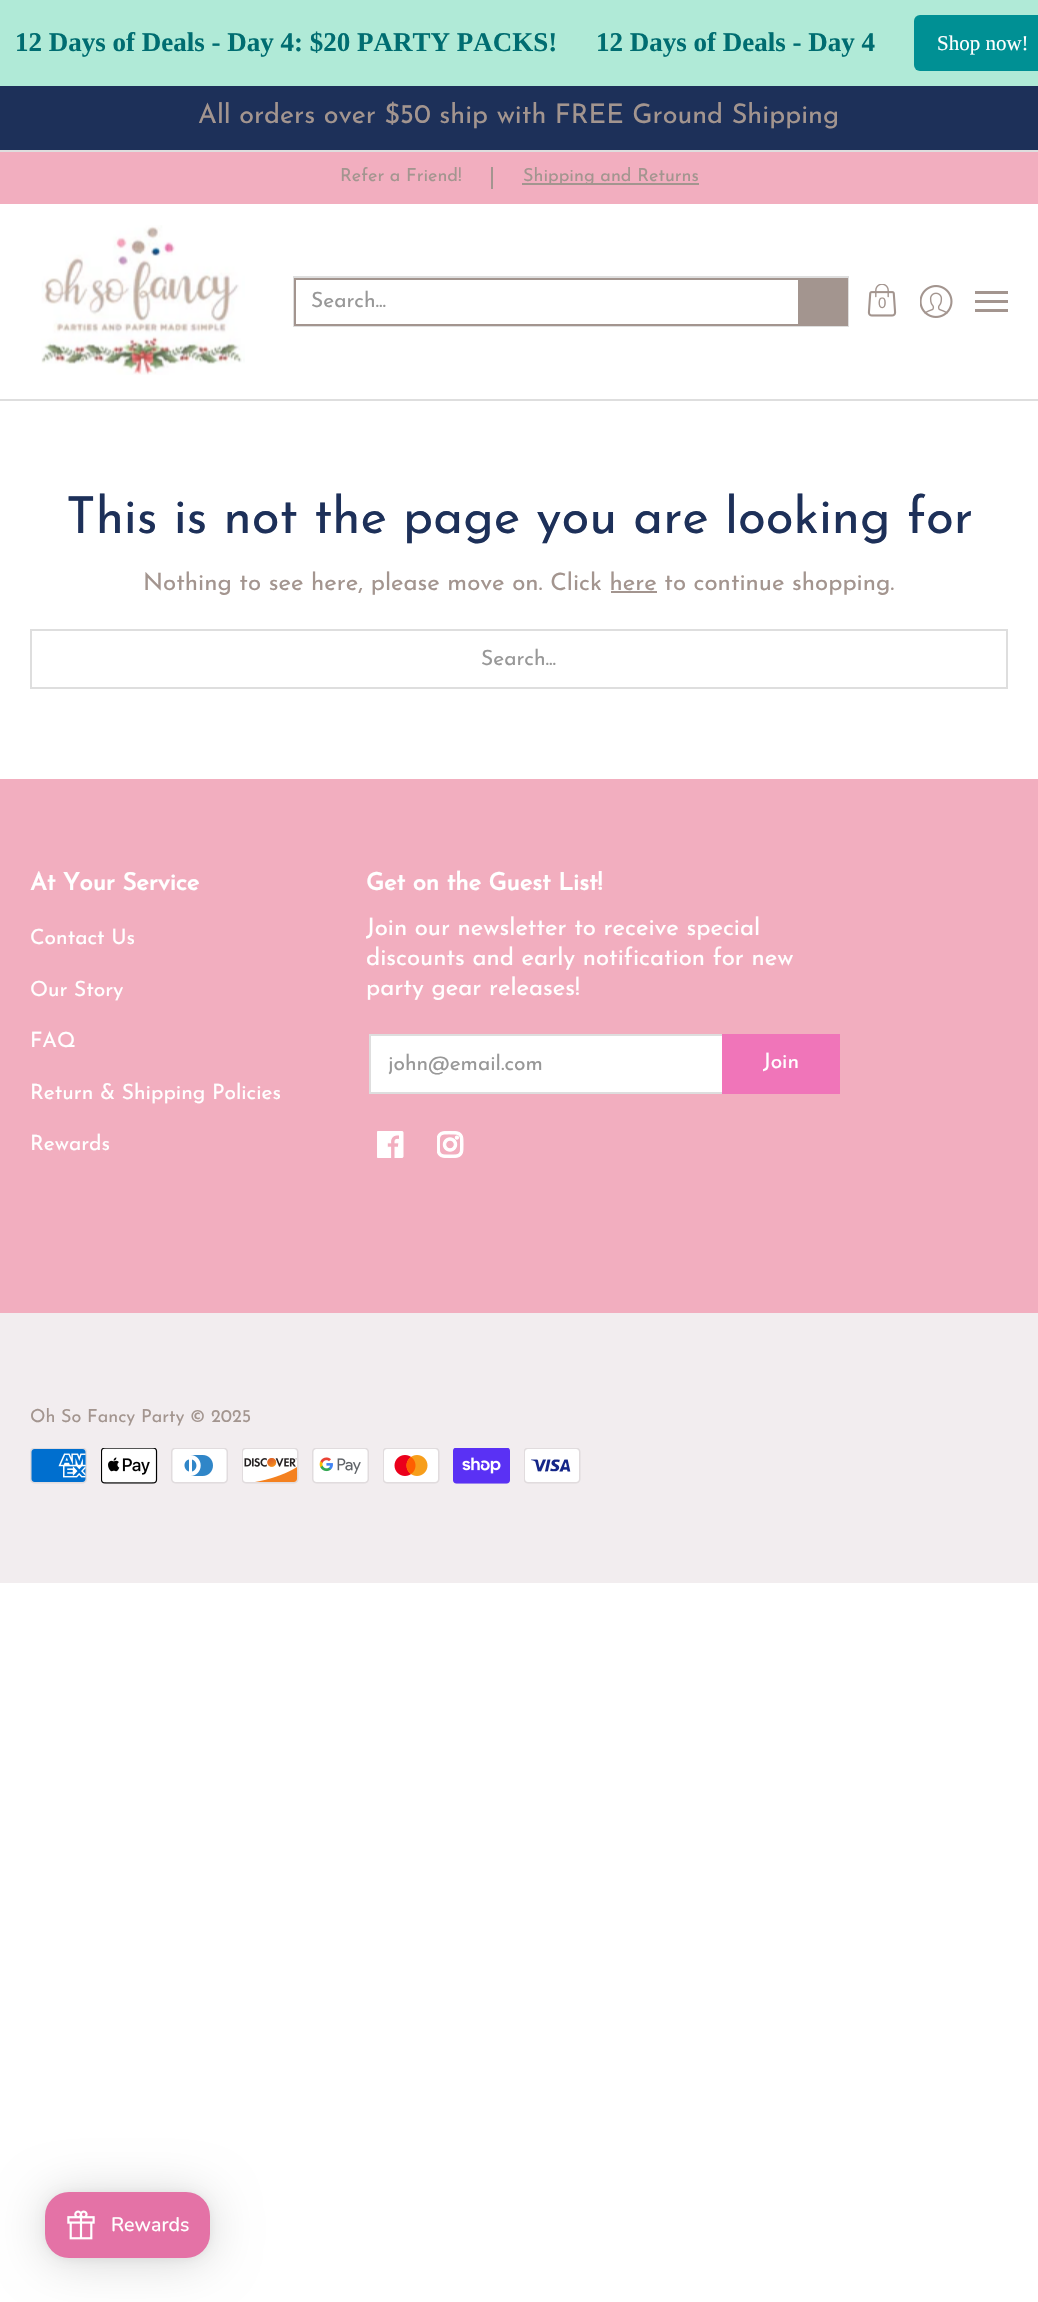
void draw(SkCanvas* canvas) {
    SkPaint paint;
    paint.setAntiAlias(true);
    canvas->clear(0xFFFFFFFF);
    paint.setColor(0xFFB0EAD7);
    canvas->drawRect(SkRect::MakeXYWH(0, 0, 1038, 86), paint);
    SkFont font1(fontMgr->matchFamilyStyle("Liberation Serif", SkFontStyle::Bold()), 27);
    font1.setSubpixel(true);
    paint.setColor(0xFF006D71);
    canvas->drawString("12 Days of Deals - Day 4: $20 PARTY PACKS!", 15, 51, font1, paint);
    canvas->drawString("12 Days of Deals - Day 4", 596, 51, font1, paint);
    paint.setColor(0xFF009094);
    canvas->drawRoundRect(SkRect::MakeXYWH(914, 15, 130, 56), 6, 6, paint);
    SkFont font2(fontMgr->matchFamilyStyle("Liberation Serif", SkFontStyle::Normal()), 21);
    font2.setSubpixel(true);
    paint.setColor(0xFFFFFFFF);
    canvas->drawString("Shop now!", 937, 50, font2, paint);
    paint.setColor(0xFF1D3059);
    canvas->drawRect(SkRect::MakeXYWH(0, 86, 1038, 64), paint);
    paint.setColor(0xFFDEDEDE);
    canvas->drawRect(SkRect::MakeXYWH(0, 150, 1038, 2), paint);
    SkFont font3(fontMgr->matchFamilyStyle("Josefin Sans", SkFontStyle(100, SkFontStyle::kNormal_Width, SkFontStyle::kUpright_Slant)), 27);
    font3.setSubpixel(true);
    paint.setColor(0xFFA3958F);
    canvas->drawString("All orders over $50 ship with FREE Ground Shipping", 198, 123, font3, paint);
    paint.setColor(0xFFF2AEBF);
    canvas->drawRect(SkRect::MakeXYWH(0, 152, 1038, 52), paint);
    SkFont font4(fontMgr->matchFamilyStyle("Josefin Sans", SkFontStyle(100, SkFontStyle::kNormal_Width, SkFontStyle::kUpright_Slant)), 18);
    font4.setSubpixel(true);
    paint.setColor(0xFFA3958F);
    canvas->drawString("Refer a Friend!", 340, 181, font4, paint);
    canvas->drawRect(SkRect::MakeXYWH(491, 167, 2, 22), paint);
    canvas->drawRect(SkRect::MakeXYWH(522, 183, 177, 2), paint);
    canvas->drawString("Shipping and Returns", 523, 181, font4, paint);
    paint.setColor(0xFFDEDEDE);
    canvas->drawRect(SkRect::MakeXYWH(0, 399, 1038, 2), paint);
    canvas->drawImageRect(SkImages::DeferredFromEncodedData(SkData::MakeFromFileName("img1.png")), SkRect::MakeXYWH(41, 225, 204, 150), SkSamplingOptions());
    paint.setStyle(SkPaint::kStroke_Style);
    paint.setStrokeWidth(2);
    canvas->drawRect(SkRect::MakeXYWH(294, 277, 554, 49), paint);
    paint.setColor(0xFFA3958F);
    canvas->drawRect(SkRect::MakeXYWH(295, 279, 504, 46), paint);
    SkFont font5(fontMgr->matchFamilyStyle("Josefin Sans", SkFontStyle(100, SkFontStyle::kNormal_Width, SkFontStyle::kUpright_Slant)), 21);
    font5.setSubpixel(true);
    paint.setStyle(SkPaint::kFill_Style);
    paint.setColor(0xFF989898);
    canvas->drawString("Search...", 311, 307, font5, paint);
    paint.setColor(0xFFA3958F);
    canvas->drawRect(SkRect::MakeXYWH(800, 278, 48, 48), paint);
    canvas->drawImageRect(SkImages::DeferredFromEncodedData(SkData::MakeFromFileName("img2.png")), SkRect::MakeXYWH(867, 284, 30, 33), SkSamplingOptions());
    SkFont font6(fontMgr->matchFamilyStyle("Liberation Sans", SkFontStyle::Normal()), 15);
    font6.setSubpixel(true);
    canvas->drawString("0", 878, 308, font6, paint);
    canvas->drawImageRect(SkImages::DeferredFromEncodedData(SkData::MakeFromFileName("img3.png")), SkRect::MakeXYWH(920, 285, 33, 33), SkSamplingOptions());
    canvas->drawRect(SkRect::MakeXYWH(975, 291, 33, 3), paint);
    canvas->drawRect(SkRect::MakeXYWH(975, 309, 33, 3), paint);
    canvas->drawRect(SkRect::MakeXYWH(975, 300, 33, 3), paint);
    SkFont font7(fontMgr->matchFamilyStyle("Josefin Sans", SkFontStyle(100, SkFontStyle::kNormal_Width, SkFontStyle::kUpright_Slant)), 51);
    font7.setSubpixel(true);
    paint.setColor(0xFF1D3059);
    canvas->drawString("This is not the page you are looking for", 66, 533, font7, paint);
    SkFont font8(fontMgr->matchFamilyStyle("Josefin Sans", SkFontStyle(100, SkFontStyle::kNormal_Width, SkFontStyle::kUpright_Slant)), 24);
    font8.setSubpixel(true);
    paint.setColor(0xFFA3958F);
    canvas->drawString("Nothing to see here, please move on. Click here to continue shopping.", 143, 590, font8, paint);
    canvas->drawRect(SkRect::MakeXYWH(611, 591, 46, 2), paint);
    paint.setStyle(SkPaint::kStroke_Style);
    paint.setColor(0xFFDEDEDE);
    canvas->drawRect(SkRect::MakeXYWH(31, 630, 976, 58), paint);
    paint.setStyle(SkPaint::kFill_Style);
    paint.setColor(0xFF989898);
    canvas->drawString("Search...", 481, 665, font5, paint);
    paint.setColor(0xFFF2AEBF);
    canvas->drawRect(SkRect::MakeXYWH(0, 779, 1038, 534), paint);
    SkFont font9(fontMgr->matchFamilyStyle("Josefin Sans", SkFontStyle::Bold()), 24);
    font9.setSubpixel(true);
    paint.setColor(0xFFFFFFFF);
    canvas->drawString("At Your Service", 30, 890, font9, paint);
    canvas->drawString("Contact Us", 30, 944, font5, paint);
    canvas->drawString("Our Story", 30, 996, font5, paint);
    canvas->drawString("FAQ", 30, 1047, font5, paint);
    canvas->drawString("Return & Shipping Policies", 30, 1099, font5, paint);
    canvas->drawString("Rewards", 30, 1150, font5, paint);
    canvas->drawString("Get on the Guest List!", 366, 890, font9, paint);
    canvas->drawString("Join our newsletter to receive special", 366, 935, font8, paint);
    canvas->drawString("discounts and early notification for new", 366, 965, font8, paint);
    canvas->drawString("party gear releases!", 366, 995, font8, paint);
    canvas->drawRect(SkRect::MakeXYWH(371, 1036, 351, 56), paint);
    paint.setStyle(SkPaint::kStroke_Style);
    paint.setColor(0xFFDEDEDE);
    canvas->drawRect(SkRect::MakeXYWH(370, 1035, 354, 58), paint);
    paint.setStyle(SkPaint::kFill_Style);
    paint.setColor(0xFF989898);
    canvas->drawString("john@email.com", 388, 1070, font5, paint);
    paint.setColor(0xFFF075B9);
    canvas->drawRect(SkRect::MakeXYWH(722, 1034, 118, 60), paint);
    paint.setColor(0xFFFFFFFF);
    canvas->drawString("Join", 763, 1068, font5, paint);
    canvas->drawImageRect(SkImages::DeferredFromEncodedData(SkData::MakeFromFileName("img4.png")), SkRect::MakeXYWH(377, 1131, 27, 27), SkSamplingOptions());
    canvas->drawImageRect(SkImages::DeferredFromEncodedData(SkData::MakeFromFileName("img5.png")), SkRect::MakeXYWH(437, 1131, 27, 27), SkSamplingOptions());
    paint.setColor(0xFFF2EDEF);
    canvas->drawRect(SkRect::MakeXYWH(0, 1313, 1038, 270), paint);
    paint.setColor(0xFFA3958F);
    canvas->drawString("Oh So Fancy Party © 2025", 30, 1422, font4, paint);
    canvas->drawImageRect(SkImages::DeferredFromEncodedData(SkData::MakeFromFileName("img6.png")), SkRect::MakeXYWH(30, 1448, 57, 36), SkSamplingOptions());
    canvas->drawImageRect(SkImages::DeferredFromEncodedData(SkData::MakeFromFileName("img7.png")), SkRect::MakeXYWH(101, 1448, 57, 36), SkSamplingOptions());
    canvas->drawImageRect(SkImages::DeferredFromEncodedData(SkData::MakeFromFileName("img8.png")), SkRect::MakeXYWH(171, 1448, 57, 36), SkSamplingOptions());
    canvas->drawImageRect(SkImages::DeferredFromEncodedData(SkData::MakeFromFileName("img9.png")), SkRect::MakeXYWH(242, 1448, 57, 36), SkSamplingOptions());
    canvas->drawImageRect(SkImages::DeferredFromEncodedData(SkData::MakeFromFileName("img10.png")), SkRect::MakeXYWH(312, 1448, 57, 36), SkSamplingOptions());
    canvas->drawImageRect(SkImages::DeferredFromEncodedData(SkData::MakeFromFileName("img11.png")), SkRect::MakeXYWH(383, 1448, 57, 36), SkSamplingOptions());
    canvas->drawImageRect(SkImages::DeferredFromEncodedData(SkData::MakeFromFileName("img12.png")), SkRect::MakeXYWH(453, 1448, 57, 36), SkSamplingOptions());
    canvas->drawImageRect(SkImages::DeferredFromEncodedData(SkData::MakeFromFileName("img13.png")), SkRect::MakeXYWH(524, 1448, 57, 36), SkSamplingOptions());
    paint.setColor(0x29000000);
    paint.setMaskFilter(SkMaskFilter::MakeBlur(kNormal_SkBlurStyle, 24));
    canvas->drawRoundRect(SkRect::MakeXYWH(45, 2195, 165, 66), 24, 24, paint);
    paint.setMaskFilter(nullptr);
    paint.setColor(0x0F000000);
    paint.setMaskFilter(SkMaskFilter::MakeBlur(kNormal_SkBlurStyle, 4.5f));
    canvas->drawRoundRect(SkRect::MakeXYWH(45, 2193, 165, 66), 24, 24, paint);
    paint.setMaskFilter(nullptr);
    paint.setColor(0xFFE472A6);
    canvas->drawRoundRect(SkRect::MakeXYWH(45, 2192, 165, 66), 24, 24, paint);
    canvas->drawImageRect(SkImages::DeferredFromEncodedData(SkData::MakeFromFileName("img14.png")), SkRect::MakeXYWH(67, 2210, 28, 30), SkSamplingOptions());
    SkFont font10(fontMgr->matchFamilyStyle("Nunito", SkFontStyle(500, SkFontStyle::kNormal_Width, SkFontStyle::kUpright_Slant)), 19.5f);
    font10.setSubpixel(true);
    paint.setColor(0xFFFFFFFF);
    canvas->drawString("Rewards", 111, 2231, font10, paint);
}
